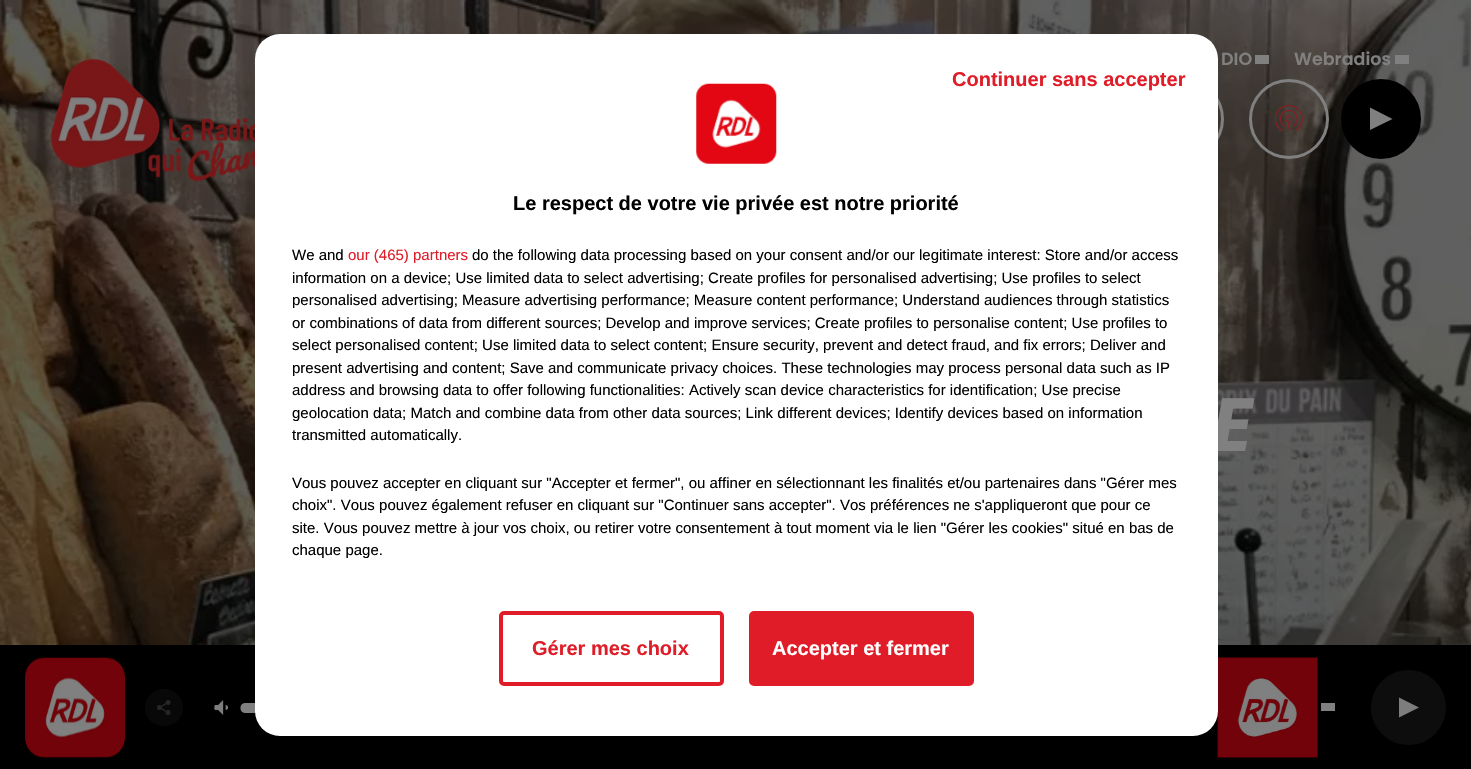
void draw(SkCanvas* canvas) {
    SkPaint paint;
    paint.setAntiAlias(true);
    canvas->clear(0xFFFFFFFF);
    canvas->drawImageRect(SkImages::DeferredFromEncodedData(SkData::MakeFromFileName("img4.png")), SkRect::MakeXYWH(0, 0, 1471, 645), SkSamplingOptions());
    paint.setStyle(SkPaint::kStroke_Style);
    paint.setStrokeWidth(3);
    paint.setColor(0xFF808080);
    canvas->drawCircle(1184, 119, 38.5f, paint);
    SkFont font1(fontMgr->matchFamilyStyle("Poppins", SkFontStyle::BoldItalic()), 75);
    font1.setSubpixel(true);
    paint.setStyle(SkPaint::kFill_Style);
    canvas->drawString("E", 1212, 451, font1, paint);
    paint.setColor(0xFF000000);
    canvas->drawRect(SkRect::MakeXYWH(0, 645, 1471, 124), paint);
    paint.setColor(0xFF1A1A1A);
    canvas->drawRoundRect(SkRect::MakeXYWH(240, 703, 161, 10), 5, 5, paint);
    paint.setColor(0xFF808080);
    canvas->drawPath(SkPathBuilder().moveTo(245, 703).cubicTo(239, 703, 239, 713, 245, 713).lineTo(396, 713).lineTo(396, 712).cubicTo(391, 712, 390, 705, 394, 703).close().detach(), paint);
    canvas->drawImageRect(SkImages::DeferredFromEncodedData(SkData::MakeFromFileName("img8.png")), SkRect::MakeXYWH(1217, 657, 101, 101), SkSamplingOptions());
    paint.setColor(0xFFFFFFFF);
    canvas->drawRoundRect(SkRect::MakeXYWH(255, 34, 963, 702), 25, 25, paint);
    SkFont font2(fontMgr->matchFamilyStyle("Liberation Sans", SkFontStyle::Bold()), 20);
    font2.setSubpixel(true);
    paint.setColor(0xFFDF1C27);
    canvas->drawString("Continuer sans accepter", 952, 86, font2, paint);
    paint.setStyle(SkPaint::kStroke_Style);
    paint.setStrokeWidth(4);
    canvas->drawRoundRect(SkRect::MakeXYWH(501, 613, 221, 71), 3, 3, paint);
    paint.setStyle(SkPaint::kFill_Style);
    canvas->drawString("Gérer mes choix", 532, 655, font2, paint);
    canvas->drawRoundRect(SkRect::MakeXYWH(751, 613, 221, 71), 3, 3, paint);
    paint.setStyle(SkPaint::kStroke_Style);
    canvas->drawRoundRect(SkRect::MakeXYWH(751, 613, 221, 71), 3, 3, paint);
    paint.setStyle(SkPaint::kFill_Style);
    paint.setColor(0xFFFFFFFF);
    canvas->drawString("Accepter et fermer", 772, 655, font2, paint);
    canvas->drawImageRect(SkImages::DeferredFromEncodedData(SkData::MakeFromFileName("img1.png")), SkRect::MakeXYWH(696, 83, 81, 81), SkSamplingOptions());
    paint.setColor(0xFF000000);
    canvas->drawString("Le respect de votre vie privée est notre priorité", 513, 210, font2, paint);
    SkFont font3(fontMgr->matchFamilyStyle("Liberation Sans", SkFontStyle::Normal()), 15);
    font3.setSubpixel(true);
    canvas->drawString("We and", 292, 260, font3, paint);
    paint.setColor(0xFFDF1C27);
    canvas->drawString("our (465) partners", 348, 260, font3, paint);
    paint.setColor(0xFF000000);
    canvas->drawString("do the following data processing based on your consent and/or our legitimate interest: Store and/or access", 472, 260, font3, paint);
    canvas->drawString("information on a device; Use limited data to select advertising; Create profiles for personalised advertising; Use profiles to select", 292, 283, font3, paint);
    canvas->drawString("personalised advertising; Measure advertising performance; Measure content performance; Understand audiences through statistics", 292, 305, font3, paint);
    canvas->drawString("or combinations of data from different sources; Develop and improve services; Create profiles to personalise content; Use profiles to", 292, 328, font3, paint);
    canvas->drawString("select personalised content; Use limited data to select content; Ensure security, prevent and detect fraud, and fix errors; Deliver and", 292, 350, font3, paint);
    canvas->drawString("present advertising and content; Save and communicate privacy choices. These technologies may process personal data such as IP", 292, 373, font3, paint);
    canvas->drawString("address and browsing data to offer following functionalities: Actively scan device characteristics for identification; Use precise", 292, 395, font3, paint);
    canvas->drawString("geolocation data; Match and combine data from other data sources; Link different devices; Identify devices based on information", 292, 418, font3, paint);
    canvas->drawString("transmitted automatically.", 292, 440, font3, paint);
    canvas->drawString("Vous pouvez accepter en cliquant sur \"Accepter et fermer\", ou affiner en sélectionnant les finalités et/ou partenaires dans \"Gérer mes", 292, 488, font3, paint);
    canvas->drawString("choix\". Vous pouvez également refuser en cliquant sur \"Continuer sans accepter\". Vos préférences ne s'appliqueront que pour ce", 292, 510, font3, paint);
    canvas->drawString("site. Vous pouvez mettre à jour vos choix, ou retirer votre consentement à tout moment via le lien \"Gérer les cookies\" situé en bas de", 292, 533, font3, paint);
    canvas->drawString("chaque page.", 292, 555, font3, paint);
    canvas->drawImageRect(SkImages::DeferredFromEncodedData(SkData::MakeFromFileName("img2.png")), SkRect::MakeXYWH(50, 58, 205, 124), SkSamplingOptions());
    SkFont font4(fontMgr->matchFamilyStyle("Poppins", SkFontStyle(600, SkFontStyle::kNormal_Width, SkFontStyle::kUpright_Slant)), 17.5f);
    font4.setSubpixel(true);
    paint.setColor(0xFF808080);
    canvas->drawString("DIO", 1221, 65, font4, paint);
    canvas->drawRect(SkRect::MakeXYWH(1255, 55, 14, 9), paint);
    canvas->drawString("Webradios", 1294, 65, font4, paint);
    canvas->drawRect(SkRect::MakeXYWH(1395, 55, 14, 9), paint);
    paint.setStyle(SkPaint::kStroke_Style);
    paint.setStrokeWidth(3);
    canvas->drawCircle(1289, 119, 38.5f, paint);
    canvas->drawImageRect(SkImages::DeferredFromEncodedData(SkData::MakeFromFileName("img3.png")), SkRect::MakeXYWH(1275, 105, 28, 27), SkSamplingOptions());
    paint.setStyle(SkPaint::kFill_Style);
    paint.setColor(0xFF000000);
    canvas->drawCircle(1381, 119, 38.5f, paint);
    paint.setStyle(SkPaint::kStroke_Style);
    canvas->drawCircle(1381, 119, 38.5f, paint);
    paint.setStyle(SkPaint::kFill_Style);
    paint.setColor(0xFF808080);
    canvas->drawPath(SkPathBuilder().moveTo(1392.5f, 119).lineTo(1370, 130).lineTo(1370, 107.5f).close().detach(), paint);
    canvas->drawImageRect(SkImages::DeferredFromEncodedData(SkData::MakeFromFileName("img5.png")), SkRect::MakeXYWH(25, 657, 100, 101), SkSamplingOptions());
    paint.setColor(0xFF080808);
    canvas->drawRoundRect(SkRect::MakeXYWH(145, 689, 38, 37), 18.5f, 18.5f, paint);
    canvas->drawImageRect(SkImages::DeferredFromEncodedData(SkData::MakeFromFileName("img6.png")), SkRect::MakeXYWH(157, 700, 14, 15), SkSamplingOptions());
    canvas->drawImageRect(SkImages::DeferredFromEncodedData(SkData::MakeFromFileName("img7.png")), SkRect::MakeXYWH(214, 700, 15, 15), SkSamplingOptions());
    paint.setColor(0xFF808080);
    canvas->drawRect(SkRect::MakeXYWH(1321, 703, 14, 8), paint);
    paint.setColor(0xFF0D0D0D);
    canvas->drawCircle(1408.5f, 707.5f, 37.5f, paint);
    paint.setColor(0xFF7D7D7D);
    canvas->drawPath(SkPathBuilder().moveTo(1419, 707.5f).lineTo(1399, 717.5f).lineTo(1399, 697.5f).close().detach(), paint);
}
